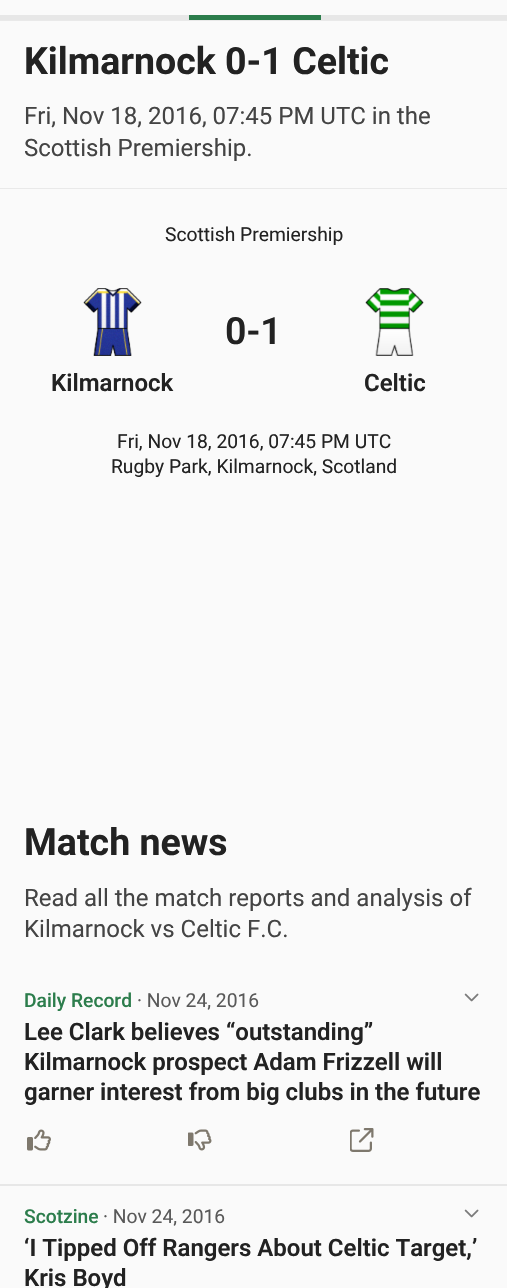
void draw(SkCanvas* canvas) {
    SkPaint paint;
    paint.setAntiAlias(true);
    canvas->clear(0xFFFAFAFA);
    paint.setColor(0xFFE9E9E9);
    canvas->drawRect(SkRect::MakeXYWH(0, 20, 507, 1), paint);
    paint.setColor(0xFFE7E7E7);
    canvas->drawRect(SkRect::MakeXYWH(0, 15, 189, 5), paint);
    paint.setColor(0xFF2C7D4C);
    canvas->drawRect(SkRect::MakeXYWH(189, 15, 132, 5), paint);
    paint.setColor(0xFFE7E7E7);
    canvas->drawRect(SkRect::MakeXYWH(321, 15, 186, 5), paint);
    paint.setColor(0xFFE9E9E9);
    canvas->drawRect(SkRect::MakeXYWH(0, 188, 507, 1), paint);
    SkFont font1(fontMgr->matchFamilyStyle("Roboto", SkFontStyle::Bold()), 37.5f);
    font1.setSubpixel(true);
    paint.setColor(0xFF222222);
    canvas->drawString("Kilmarnock 0-1 Celtic", 24, 74, font1, paint);
    SkFont font2(fontMgr->matchFamilyStyle("Roboto", SkFontStyle::Normal()), 24);
    font2.setSubpixel(true);
    paint.setColor(0xFF444444);
    canvas->drawString("Fri, Nov 18, 2016, 07:45 PM UTC in the", 24, 124, font2, paint);
    canvas->drawString("Scottish Premiership.", 24, 156, font2, paint);
    SkFont font3(fontMgr->matchFamilyStyle("Roboto", SkFontStyle::Normal()), 19.25f);
    font3.setSubpixel(true);
    paint.setColor(0xFF222222);
    canvas->drawString("Scottish Premiership", 165, 241, font3, paint);
    SkFont font4(fontMgr->matchFamilyStyle("Roboto", SkFontStyle(600, SkFontStyle::kNormal_Width, SkFontStyle::kUpright_Slant)), 37.5f);
    font4.setSubpixel(true);
    canvas->drawString("0-1", 225, 344, font4, paint);
    canvas->drawImageRect(SkImages::DeferredFromEncodedData(SkData::MakeFromFileName("img1.png")), SkRect::MakeXYWH(83, 288, 59, 68), SkSamplingOptions());
    SkFont font5(fontMgr->matchFamilyStyle("Roboto", SkFontStyle(600, SkFontStyle::kNormal_Width, SkFontStyle::kUpright_Slant)), 24);
    font5.setSubpixel(true);
    canvas->drawString("Kilmarnock", 51, 391, font5, paint);
    canvas->drawImageRect(SkImages::DeferredFromEncodedData(SkData::MakeFromFileName("img2.png")), SkRect::MakeXYWH(365, 288, 59, 68), SkSamplingOptions());
    canvas->drawString("Celtic", 364, 391, font5, paint);
    canvas->drawString("Fri, Nov 18, 2016, 07:45 PM UTC", 117, 448, font3, paint);
    canvas->drawString("Rugby Park, Kilmarnock, Scotland", 111, 473, font3, paint);
    canvas->drawString("Match news", 24, 855, font1, paint);
    paint.setColor(0xFF444444);
    canvas->drawString("Read all the match reports and analysis of", 24, 906, font2, paint);
    canvas->drawString("Kilmarnock vs Celtic F.C.", 24, 937, font2, paint);
    paint.setColor(0xFFE7E7E7);
    canvas->drawRect(SkRect::MakeXYWH(0, 1184, 507, 2), paint);
    SkFont font6(fontMgr->matchFamilyStyle("Roboto", SkFontStyle(500, SkFontStyle::kNormal_Width, SkFontStyle::kUpright_Slant)), 19.25f);
    font6.setSubpixel(true);
    paint.setColor(0xFF2C7D4C);
    canvas->drawString("Daily Record", 24, 1007, font6, paint);
    paint.setColor(0xFF595959);
    canvas->drawString("· Nov 24, 2016", 137, 1007, font3, paint);
    canvas->drawImageRect(SkImages::DeferredFromEncodedData(SkData::MakeFromFileName("img3.png")), SkRect::MakeXYWH(464, 993, 15, 9), SkSamplingOptions());
    paint.setColor(0xFF222222);
    canvas->drawString("Lee Clark believes “outstanding”", 24, 1040, font5, paint);
    canvas->drawString("Kilmarnock prospect Adam Frizzell will", 24, 1070, font5, paint);
    canvas->drawString("garner interest from big clubs in the future", 24, 1100, font5, paint);
    canvas->drawImageRect(SkImages::DeferredFromEncodedData(SkData::MakeFromFileName("img4.png")), SkRect::MakeXYWH(27, 1129, 24, 22), SkSamplingOptions());
    canvas->drawImageRect(SkImages::DeferredFromEncodedData(SkData::MakeFromFileName("img5.png")), SkRect::MakeXYWH(188, 1129, 24, 22), SkSamplingOptions());
    canvas->drawImageRect(SkImages::DeferredFromEncodedData(SkData::MakeFromFileName("img6.png")), SkRect::MakeXYWH(350, 1128, 24, 24), SkSamplingOptions());
    paint.setColor(0xFF2C7D4C);
    canvas->drawString("Scotzine", 24, 1223, font6, paint);
    paint.setColor(0xFF595959);
    canvas->drawString("· Nov 24, 2016", 103, 1223, font3, paint);
    canvas->drawImageRect(SkImages::DeferredFromEncodedData(SkData::MakeFromFileName("img3.png")), SkRect::MakeXYWH(464, 1209, 15, 9), SkSamplingOptions());
    paint.setColor(0xFF222222);
    canvas->drawString("‘I Tipped Off Rangers About Celtic Target,’", 24, 1256, font5, paint);
    canvas->drawString("Kris Boyd", 24, 1286, font5, paint);
}
